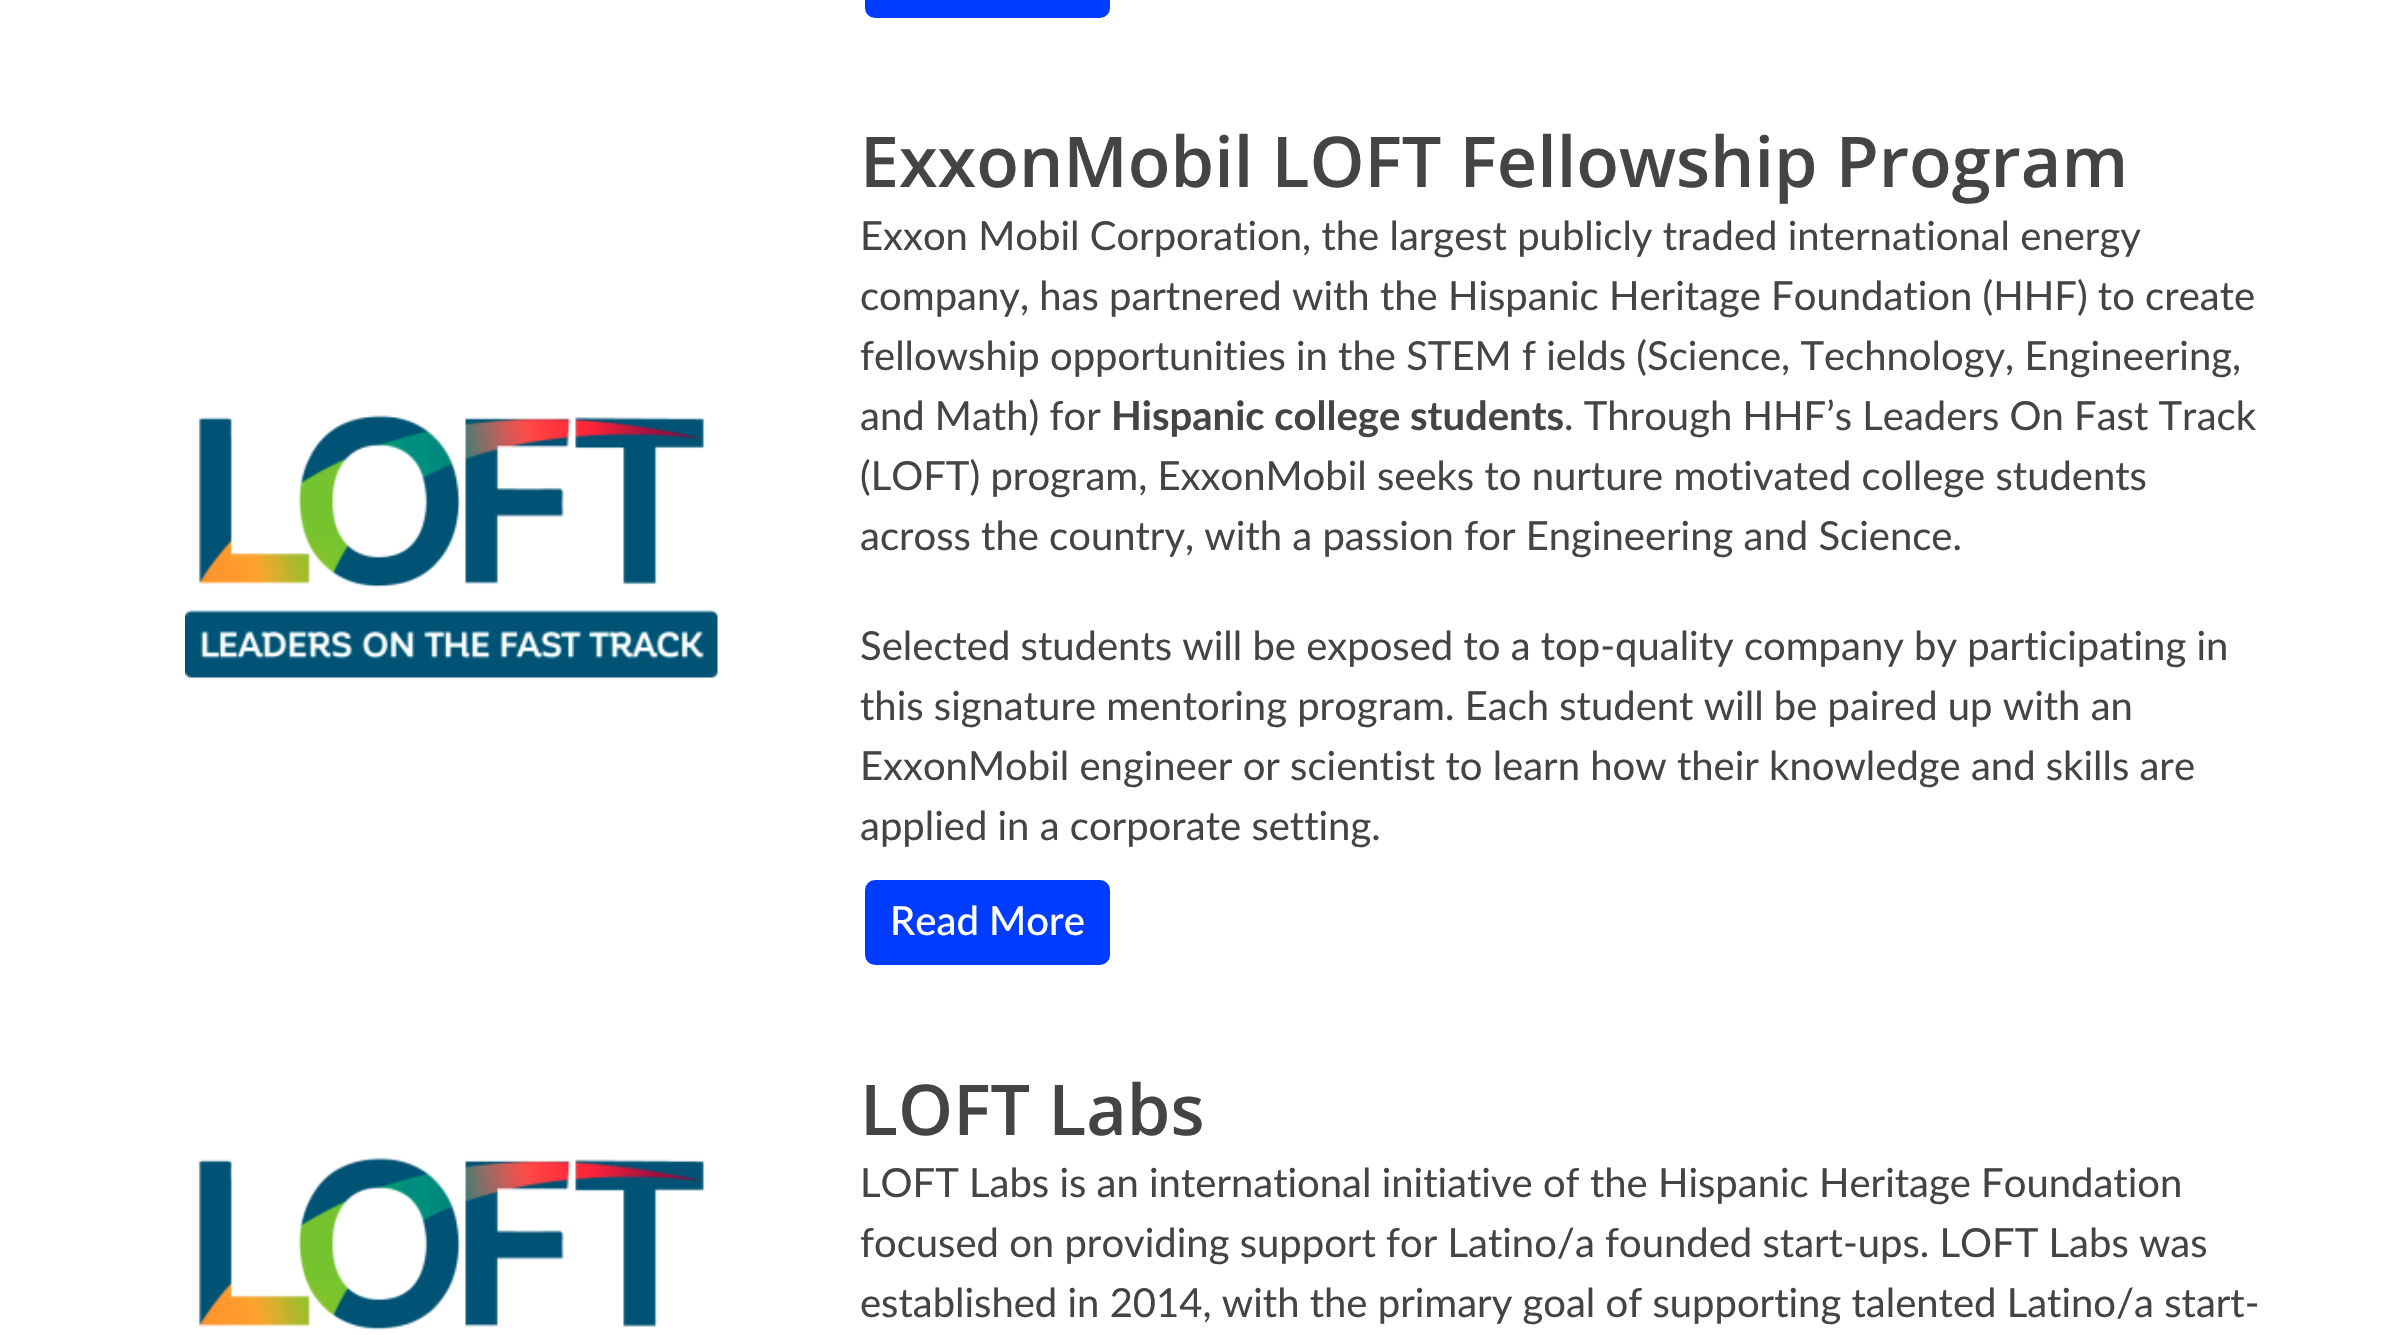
void draw(SkCanvas* canvas) {
    SkPaint paint;
    paint.setAntiAlias(true);
    canvas->clear(0xFFFFFFFF);
    paint.setColor(0xFF003CFF);
    canvas->drawRoundRect(SkRect::MakeXYWH(865, -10, 245, 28), 10, 10, paint);
    canvas->drawImageRect(SkImages::DeferredFromEncodedData(SkData::MakeFromFileName("img1.png")), SkRect::MakeXYWH(185, 415, 533, 263), SkSamplingOptions());
    SkFont font1(fontMgr->matchFamilyStyle("Open Sans", SkFontStyle(600, SkFontStyle::kNormal_Width, SkFontStyle::kUpright_Slant)), 70);
    font1.setSubpixel(true);
    paint.setColor(0xFF444444);
    canvas->drawString("ExxonMobil LOFT Fellowship Program", 860, 187, font1, paint);
    SkFont font2(fontMgr->matchFamilyStyle("Lato", SkFontStyle::Normal()), 40);
    font2.setSubpixel(true);
    canvas->drawString("Exxon Mobil Corporation, the largest publicly traded international energy", 860, 250, font2, paint);
    canvas->drawString("company, has partnered with the Hispanic Heritage Foundation (HHF) to create", 860, 310, font2, paint);
    canvas->drawString("fellowship opportunities in the STEM f ields (Science, Technology, Engineering,", 860, 370, font2, paint);
    canvas->drawString("and Math) for", 860, 430, font2, paint);
    SkFont font3(fontMgr->matchFamilyStyle("Lato", SkFontStyle::Bold()), 40);
    font3.setSubpixel(true);
    canvas->drawString("Hispanic college students", 1111, 430, font3, paint);
    canvas->drawString(". Through HHF’s Leaders On Fast Track", 1564, 430, font2, paint);
    canvas->drawString("(LOFT) program, ExxonMobil seeks to nurture motivated college students", 860, 490, font2, paint);
    canvas->drawString("across the country, with a passion for Engineering and Science.", 860, 550, font2, paint);
    canvas->drawString("Selected students will be exposed to a top-quality company by participating in", 860, 660, font2, paint);
    canvas->drawString("this signature mentoring program. Each student will be paired up with an", 860, 720, font2, paint);
    canvas->drawString("ExxonMobil engineer or scientist to learn how their knowledge and skills are", 860, 780, font2, paint);
    canvas->drawString("applied in a corporate setting.", 860, 840, font2, paint);
    paint.setColor(0xFF003CFF);
    canvas->drawRoundRect(SkRect::MakeXYWH(865, 880, 245, 85), 10, 10, paint);
    SkFont font4(fontMgr->matchFamilyStyle("Lato", SkFontStyle(500, SkFontStyle::kNormal_Width, SkFontStyle::kUpright_Slant)), 40);
    font4.setSubpixel(true);
    paint.setColor(0xFFFFFFFF);
    canvas->drawString("Read More", 890, 935, font4, paint);
    canvas->drawImageRect(SkImages::DeferredFromEncodedData(SkData::MakeFromFileName("img2.png")), SkRect::MakeXYWH(198, 1157, 507, 173), SkSamplingOptions());
    paint.setColor(0xFF444444);
    canvas->drawString("LOFT Labs", 860, 1135, font1, paint);
    canvas->drawString("LOFT Labs is an international initiative of the Hispanic Heritage Foundation", 860, 1197, font2, paint);
    canvas->drawString("focused on providing support for Latino/a founded start-ups. LOFT Labs was", 860, 1257, font2, paint);
    canvas->drawString("established in 2014, with the primary goal of supporting talented Latino/a start-", 860, 1317, font2, paint);
}
